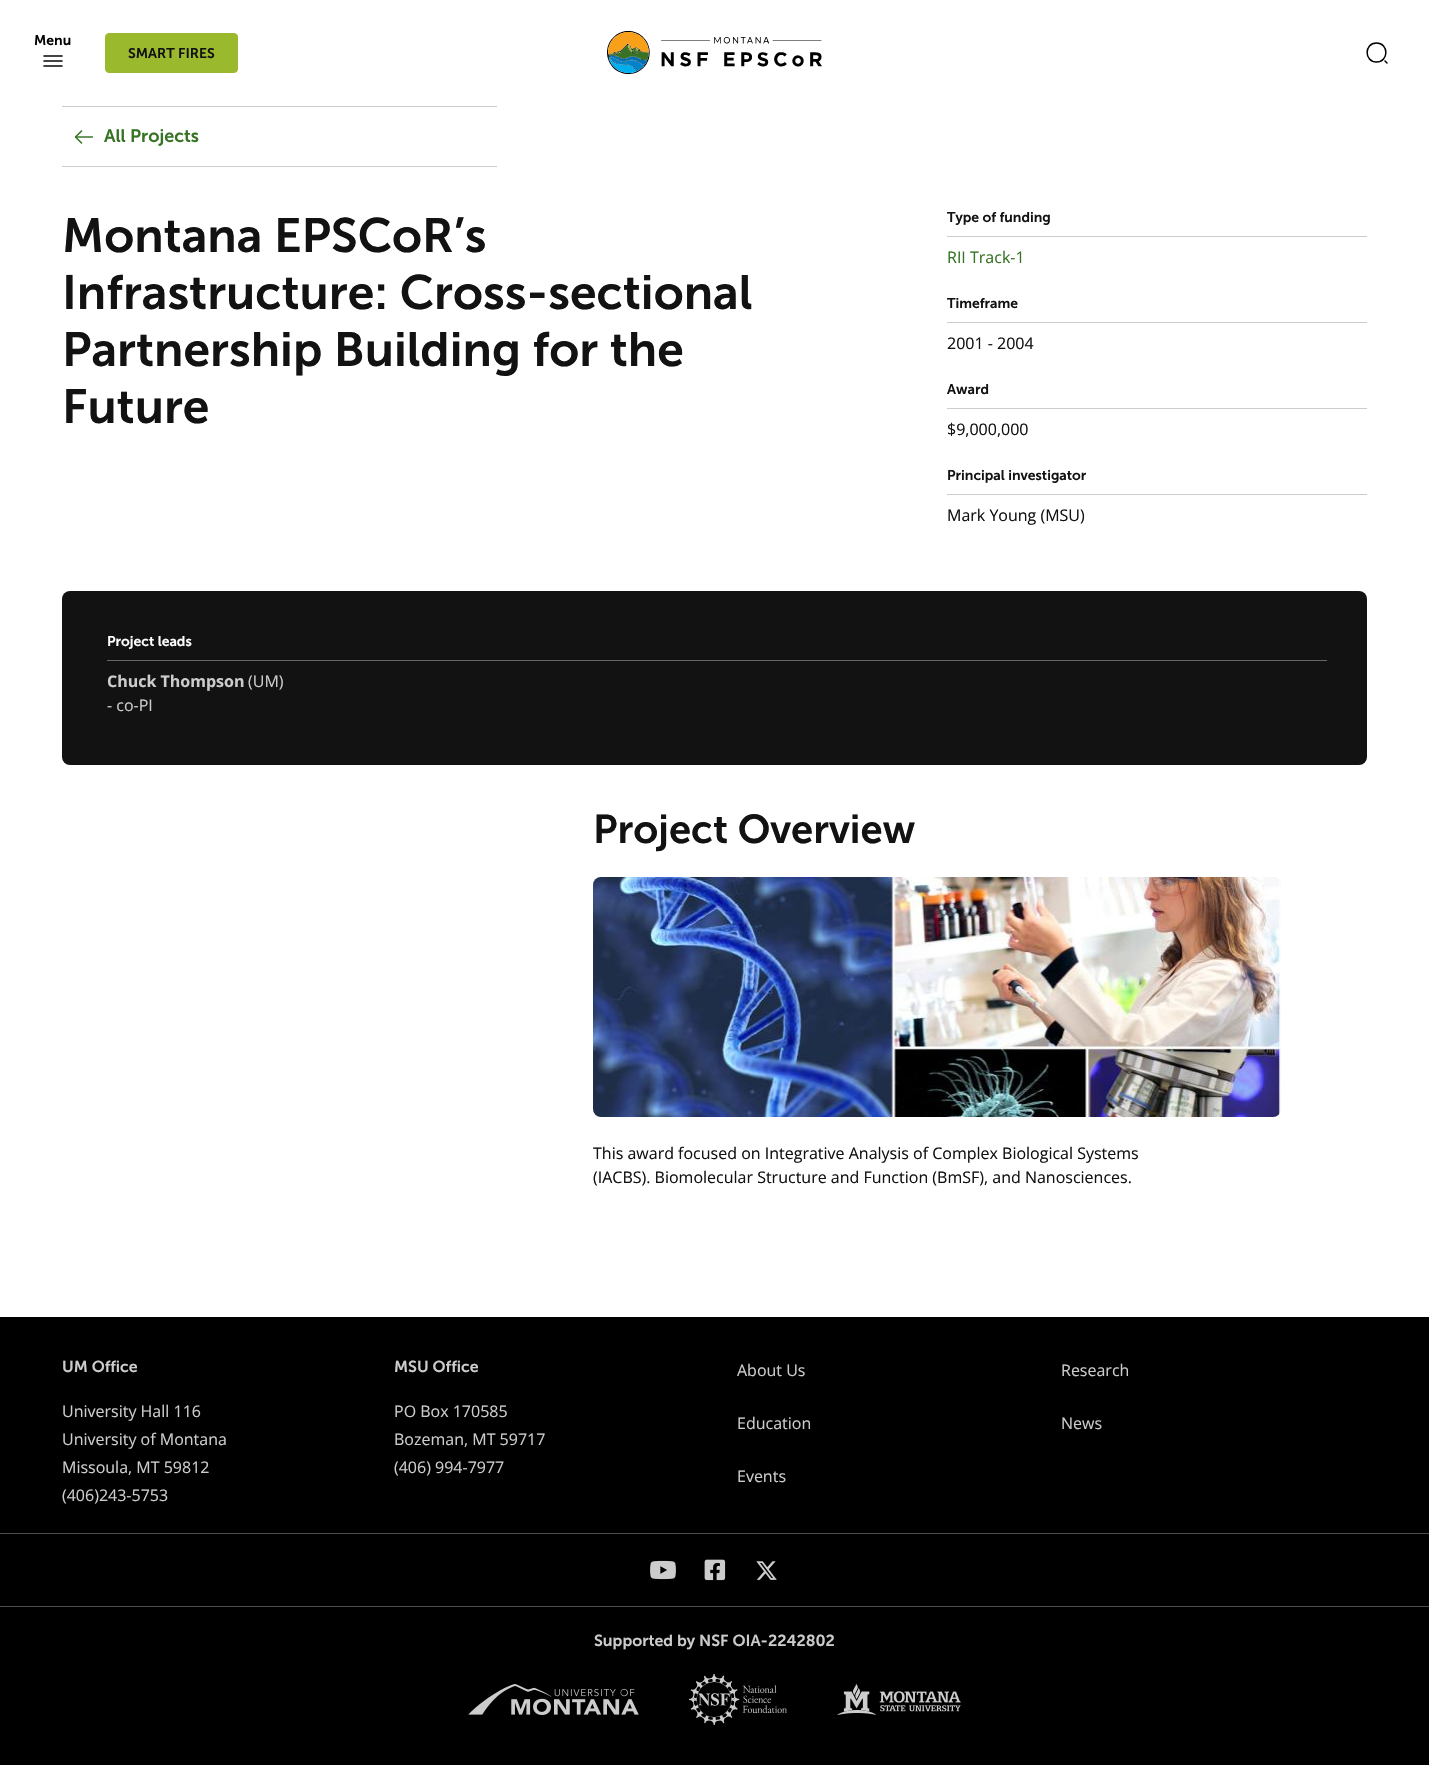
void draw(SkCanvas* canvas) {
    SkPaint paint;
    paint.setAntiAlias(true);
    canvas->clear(0xFFFFFFFF);
    SkFont font1(fontMgr->matchFamilyStyle("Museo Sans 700", SkFontStyle(600, SkFontStyle::kNormal_Width, SkFontStyle::kUpright_Slant)), 14);
    font1.setSubpixel(true);
    paint.setColor(0xFF000000);
    canvas->drawString("Menu", 34, 45, font1, paint);
    canvas->drawImageRect(SkImages::DeferredFromEncodedData(SkData::MakeFromFileName("img1.png")), SkRect::MakeXYWH(43, 55, 20, 12), SkSamplingOptions());
    paint.setColor(0xFF9BB92D);
    canvas->drawRoundRect(SkRect::MakeXYWH(105.5f, 33.5f, 132, 39), 3.5f, 3.5f, paint);
    paint.setStyle(SkPaint::kStroke_Style);
    paint.setStrokeWidth(1);
    canvas->drawRoundRect(SkRect::MakeXYWH(105.5f, 33.5f, 132, 39), 3.5f, 3.5f, paint);
    paint.setStyle(SkPaint::kFill_Style);
    paint.setColor(0xFF121212);
    canvas->drawString("SMART FIRES", 128, 58, font1, paint);
    canvas->drawImageRect(SkImages::DeferredFromEncodedData(SkData::MakeFromFileName("img2.png")), SkRect::MakeXYWH(607, 31, 215, 43), SkSamplingOptions());
    paint.setStyle(SkPaint::kStroke_Style);
    paint.setStrokeWidth(1.5f);
    paint.setStrokeCap(SkPaint::kRound_Cap);
    paint.setStrokeJoin(SkPaint::kRound_Join);
    paint.setColor(0xFF000000);
    canvas->drawPath(SkPathBuilder().moveTo(1376.5f, 62).cubicTo(1389, 62, 1389, 43, 1376.5f, 43).cubicTo(1364, 43, 1364, 62, 1376.5f, 62).close().moveTo(1387, 63).lineTo(1385, 61).detach(), paint);
    paint.setStyle(SkPaint::kFill_Style);
    paint.setColor(0xFFCCCCCC);
    canvas->drawRect(SkRect::MakeXYWH(62, 106, 435, 1), paint);
    canvas->drawRect(SkRect::MakeXYWH(62, 166, 435, 1), paint);
    canvas->drawImageRect(SkImages::DeferredFromEncodedData(SkData::MakeFromFileName("img3.png")), SkRect::MakeXYWH(74, 130, 20, 14), SkSamplingOptions());
    SkFont font2(fontMgr->matchFamilyStyle("Museo Sans 700", SkFontStyle(600, SkFontStyle::kNormal_Width, SkFontStyle::kUpright_Slant)), 18);
    font2.setSubpixel(true);
    paint.setColor(0xFF377325);
    canvas->drawString("All Projects", 104, 142, font2, paint);
    SkFont font3(fontMgr->matchFamilyStyle("Museo Sans 700", SkFontStyle(600, SkFontStyle::kNormal_Width, SkFontStyle::kUpright_Slant)), 48);
    font3.setSubpixel(true);
    paint.setColor(0xFF121212);
    canvas->drawString("Montana EPSCoR’s", 62, 252, font3, paint);
    canvas->drawString("Infrastructure: Cross-sectional", 62, 309, font3, paint);
    canvas->drawString("Partnership Building for the", 62, 366, font3, paint);
    canvas->drawString("Future", 62, 423, font3, paint);
    paint.setColor(0xFFCCCCCC);
    canvas->drawRect(SkRect::MakeXYWH(947, 236, 420, 1), paint);
    paint.setColor(0xFF121212);
    canvas->drawString("Type of funding", 947, 222, font1, paint);
    SkFont font4(fontMgr->matchFamilyStyle("Open Sans", SkFontStyle::Normal()), 16);
    font4.setSubpixel(true);
    paint.setColor(0xFF377325);
    canvas->drawString("RII Track-1", 947, 263, font4, paint);
    paint.setColor(0xFFCCCCCC);
    canvas->drawRect(SkRect::MakeXYWH(947, 322, 420, 1), paint);
    paint.setColor(0xFF121212);
    canvas->drawString("Timeframe", 947, 308, font1, paint);
    canvas->drawString("2001 - 2004", 947, 349, font4, paint);
    paint.setColor(0xFFCCCCCC);
    canvas->drawRect(SkRect::MakeXYWH(947, 408, 420, 1), paint);
    paint.setColor(0xFF121212);
    canvas->drawString("Award", 947, 394, font1, paint);
    canvas->drawString("$9,000,000", 947, 435, font4, paint);
    paint.setColor(0xFFCCCCCC);
    canvas->drawRect(SkRect::MakeXYWH(947, 494, 420, 1), paint);
    paint.setColor(0xFF121212);
    canvas->drawString("Principal investigator", 947, 480, font1, paint);
    canvas->drawString("Mark Young (MSU)", 947, 521, font4, paint);
    canvas->drawRoundRect(SkRect::MakeXYWH(62, 591, 1305, 174), 8, 8, paint);
    paint.setColor(0xFF666666);
    canvas->drawRect(SkRect::MakeXYWH(107, 660, 1220, 1), paint);
    paint.setColor(0xFFFFFFFF);
    canvas->drawString("Project leads", 107, 646, font1, paint);
    SkFont font5(fontMgr->matchFamilyStyle("Open Sans", SkFontStyle::Bold()), 16);
    font5.setSubpixel(true);
    paint.setColor(0xFFCCCCCC);
    canvas->drawString("Chuck Thompson", 107, 687, font5, paint);
    canvas->drawString("(UM)", 248, 687, font4, paint);
    canvas->drawString("- co-PI", 107, 711, font4, paint);
    SkFont font6(fontMgr->matchFamilyStyle("Museo Sans 700", SkFontStyle(600, SkFontStyle::kNormal_Width, SkFontStyle::kUpright_Slant)), 40);
    font6.setSubpixel(true);
    paint.setColor(0xFF121212);
    canvas->drawString("Project Overview", 593, 843, font6, paint);
    paint.setColor(0xFFE5E5E5);
    canvas->drawRoundRect(SkRect::MakeXYWH(593, 877, 688, 240), 8, 8, paint);
    canvas->drawImageRect(SkImages::DeferredFromEncodedData(SkData::MakeFromFileName("img4.png")), SkRect::MakeXYWH(593, 877, 688, 240), SkSamplingOptions());
    paint.setColor(0xFF121212);
    canvas->drawString("This award focused on Integrative Analysis of Complex Biological Systems", 593, 1159, font4, paint);
    canvas->drawString("(IACBS). Biomolecular Structure and Function (BmSF), and Nanosciences.", 593, 1183, font4, paint);
    paint.setColor(0xFF000000);
    canvas->drawRect(SkRect::MakeXYWH(0, 1317, 1429, 448), paint);
    SkFont font7(fontMgr->matchFamilyStyle("Museo Sans 700", SkFontStyle(600, SkFontStyle::kNormal_Width, SkFontStyle::kUpright_Slant)), 16);
    font7.setSubpixel(true);
    paint.setColor(0xFFCCCCCC);
    canvas->drawString("UM Office", 62, 1372, font7, paint);
    canvas->drawString("University Hall 116", 62, 1417, font4, paint);
    canvas->drawString("University of Montana", 62, 1445, font4, paint);
    canvas->drawString("Missoula, MT 59812", 62, 1473, font4, paint);
    canvas->drawString("(406)243-5753", 62, 1501, font4, paint);
    canvas->drawString("MSU Office", 394, 1372, font7, paint);
    canvas->drawString("PO Box 170585", 394, 1417, font4, paint);
    canvas->drawString("Bozeman, MT 59717", 394, 1445, font4, paint);
    canvas->drawString("(406) 994-7977", 394, 1473, font4, paint);
    canvas->drawString("About Us", 737, 1376, font4, paint);
    canvas->drawString("Research", 1061, 1376, font4, paint);
    canvas->drawString("Education", 737, 1429, font4, paint);
    canvas->drawString("News", 1061, 1429, font4, paint);
    canvas->drawString("Events", 737, 1482, font4, paint);
    paint.setColor(0xFF4C4C4C);
    canvas->drawRect(SkRect::MakeXYWH(0, 1533, 1429, 1), paint);
    canvas->drawRect(SkRect::MakeXYWH(0, 1606, 1429, 1), paint);
    canvas->drawImageRect(SkImages::DeferredFromEncodedData(SkData::MakeFromFileName("img5.png")), SkRect::MakeXYWH(650, 1560, 26, 20), SkSamplingOptions());
    canvas->drawImageRect(SkImages::DeferredFromEncodedData(SkData::MakeFromFileName("img6.png")), SkRect::MakeXYWH(704, 1559, 22, 22), SkSamplingOptions());
    canvas->drawImageRect(SkImages::DeferredFromEncodedData(SkData::MakeFromFileName("img7.png")), SkRect::MakeXYWH(756, 1561, 21, 19), SkSamplingOptions());
    paint.setColor(0xFFCCCCCC);
    canvas->drawString("Supported by NSF OIA-2242802", 594, 1646, font7, paint);
    canvas->drawImageRect(SkImages::DeferredFromEncodedData(SkData::MakeFromFileName("img8.png")), SkRect::MakeXYWH(468, 1684, 171, 31), SkSamplingOptions());
    canvas->drawImageRect(SkImages::DeferredFromEncodedData(SkData::MakeFromFileName("img9.png")), SkRect::MakeXYWH(689, 1674, 98, 51), SkSamplingOptions());
    canvas->drawImageRect(SkImages::DeferredFromEncodedData(SkData::MakeFromFileName("img10.png")), SkRect::MakeXYWH(837, 1684, 124, 31), SkSamplingOptions());
}
